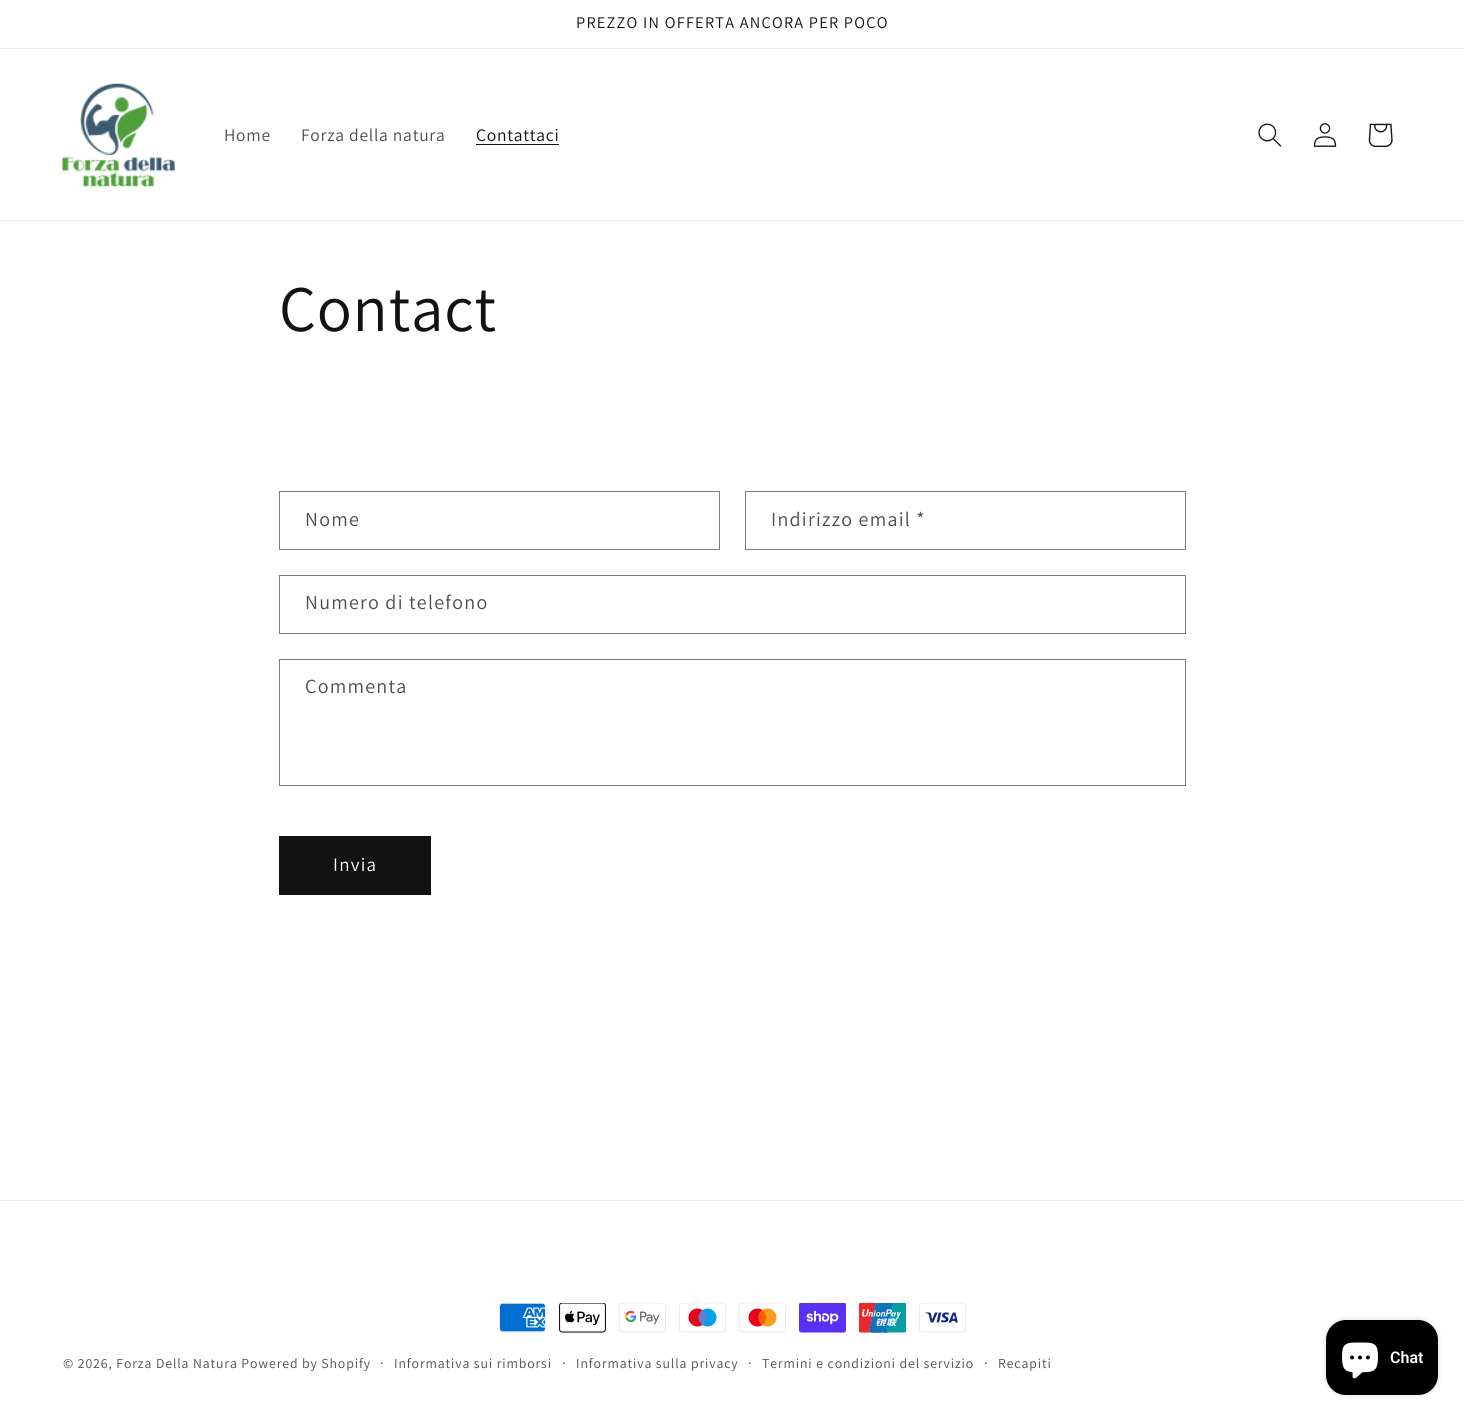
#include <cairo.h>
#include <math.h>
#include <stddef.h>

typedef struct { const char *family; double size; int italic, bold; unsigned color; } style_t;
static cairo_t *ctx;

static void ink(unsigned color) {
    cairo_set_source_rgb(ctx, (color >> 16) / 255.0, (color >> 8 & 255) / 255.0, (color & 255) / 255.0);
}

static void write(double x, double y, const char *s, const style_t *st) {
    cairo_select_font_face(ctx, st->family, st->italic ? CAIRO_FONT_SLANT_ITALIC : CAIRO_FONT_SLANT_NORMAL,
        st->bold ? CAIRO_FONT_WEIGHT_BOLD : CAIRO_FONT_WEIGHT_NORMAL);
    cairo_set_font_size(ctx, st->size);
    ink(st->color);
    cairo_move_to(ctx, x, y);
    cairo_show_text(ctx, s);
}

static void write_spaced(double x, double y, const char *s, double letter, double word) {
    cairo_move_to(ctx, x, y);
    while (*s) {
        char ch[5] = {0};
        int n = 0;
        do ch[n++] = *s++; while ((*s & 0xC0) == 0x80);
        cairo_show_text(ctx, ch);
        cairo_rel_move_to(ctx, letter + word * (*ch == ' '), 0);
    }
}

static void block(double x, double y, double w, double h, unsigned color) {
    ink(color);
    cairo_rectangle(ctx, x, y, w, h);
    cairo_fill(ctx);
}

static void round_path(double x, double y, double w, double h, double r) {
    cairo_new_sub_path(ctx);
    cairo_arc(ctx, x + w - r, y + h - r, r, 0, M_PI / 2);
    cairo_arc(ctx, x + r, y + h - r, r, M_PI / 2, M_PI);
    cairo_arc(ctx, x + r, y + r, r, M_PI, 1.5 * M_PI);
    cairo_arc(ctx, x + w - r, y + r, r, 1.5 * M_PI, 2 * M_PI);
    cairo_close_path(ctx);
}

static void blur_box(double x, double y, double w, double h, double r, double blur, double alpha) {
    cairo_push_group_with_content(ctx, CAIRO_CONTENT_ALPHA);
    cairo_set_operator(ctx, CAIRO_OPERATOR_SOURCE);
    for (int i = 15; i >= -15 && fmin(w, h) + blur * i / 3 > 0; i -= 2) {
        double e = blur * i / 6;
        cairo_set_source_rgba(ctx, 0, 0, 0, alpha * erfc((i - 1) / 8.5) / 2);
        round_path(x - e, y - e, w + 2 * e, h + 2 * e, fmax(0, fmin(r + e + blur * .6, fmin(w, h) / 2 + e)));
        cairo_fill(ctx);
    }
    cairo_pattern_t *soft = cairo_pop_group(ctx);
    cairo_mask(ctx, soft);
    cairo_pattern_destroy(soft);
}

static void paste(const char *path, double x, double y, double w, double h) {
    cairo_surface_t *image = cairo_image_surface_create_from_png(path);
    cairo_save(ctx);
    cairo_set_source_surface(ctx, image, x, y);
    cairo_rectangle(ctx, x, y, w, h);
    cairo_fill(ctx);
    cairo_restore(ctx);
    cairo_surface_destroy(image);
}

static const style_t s1 = {"Roboto SemiBold", 16, 0, 0, 0xffffff};

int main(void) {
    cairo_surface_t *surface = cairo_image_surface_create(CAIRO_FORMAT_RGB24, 1464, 1421);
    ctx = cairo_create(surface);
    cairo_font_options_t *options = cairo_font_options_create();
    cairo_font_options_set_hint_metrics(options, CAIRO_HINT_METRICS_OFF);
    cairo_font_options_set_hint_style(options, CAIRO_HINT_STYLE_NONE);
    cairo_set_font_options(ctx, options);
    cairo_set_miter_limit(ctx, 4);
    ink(0xffffff);
    cairo_paint(ctx);
    block(0, 48, 1464, 1, 0xececec);
    cairo_select_font_face(ctx, "Assistant", CAIRO_FONT_SLANT_NORMAL, CAIRO_FONT_WEIGHT_NORMAL);
    cairo_set_font_size(ctx, 16.25);
    ink(0x121212);
    write_spaced(576, 28, "PREZZO IN OFFERTA ANCORA PER POCO", 1.25, 0);
    block(0, 220, 1464, 1, 0xececec);
    paste("pic1.png", 62, 83, 113, 104);
    cairo_set_font_size(ctx, 17.5);
    ink(0x4d4d4d);
    write_spaced(224, 141, "Home", 0.75, 0);
    write_spaced(301, 141, "Forza della natura", 0.75, 0);
    ink(0x121212);
    write_spaced(476, 141, "Contattaci", 0.75, 0);
    block(476, 144, 83, 1, 0x121212);
    paste("pic2.png", 1258, 123, 24, 24);
    paste("pic3.png", 1313, 123, 24, 24);
    paste("pic4.png", 1368, 123, 25, 24);
    cairo_set_font_size(ctx, 65);
    write_spaced(279, 331, "Contact", 0.75, 0);
    cairo_rectangle(ctx, 279.5, 491.5, 440, 58);
    ink(0x7d7d7d);
    cairo_set_line_width(ctx, 1);
    cairo_stroke(ctx);
    cairo_set_font_size(ctx, 20);
    ink(0x4d4d4d);
    write_spaced(305, 526, "Nome", 1.25, 0);
    cairo_rectangle(ctx, 745.5, 491.5, 440, 58);
    ink(0x7d7d7d);
    cairo_stroke(ctx);
    ink(0x4d4d4d);
    write_spaced(771, 526, "Indirizzo email *", 1.25, 0);
    cairo_rectangle(ctx, 279.5, 575.5, 906, 58);
    ink(0x7d7d7d);
    cairo_stroke(ctx);
    ink(0x4d4d4d);
    write_spaced(305, 609, "Numero di telefono", 1.25, 0);
    cairo_rectangle(ctx, 279.5, 659.5, 906, 126);
    ink(0x7d7d7d);
    cairo_stroke(ctx);
    ink(0x4d4d4d);
    write_spaced(305, 693, "Commenta", 1.25, 0);
    block(279, 836, 152, 59, 0x121212);
    cairo_set_font_size(ctx, 19);
    ink(0xffffff);
    write_spaced(333, 871, "Invia", 1.25, 0);
    block(0, 1200, 1464, 1, 0xececec);
    paste("pic5.png", 499, 1303, 47, 30);
    paste("pic6.png", 559, 1303, 47, 30);
    paste("pic7.png", 619, 1303, 47, 30);
    paste("pic8.png", 679, 1303, 47, 30);
    paste("pic9.png", 739, 1303, 47, 30);
    paste("pic10.png", 799, 1303, 47, 30);
    paste("pic11.png", 859, 1303, 47, 30);
    paste("pic12.png", 919, 1303, 47, 30);
    cairo_set_font_size(ctx, 13.75);
    ink(0x4d4d4d);
    write_spaced(63, 1368, "© 2026, Forza Della Natura Powered by Shopify", 0.9, 0);
    cairo_set_font_size(ctx, 15);
    write_spaced(380, 1368, "·", 0.9, 0);
    cairo_set_font_size(ctx, 13.75);
    write_spaced(394, 1368, "Informativa sui rimborsi", 0.9, 0);
    cairo_set_font_size(ctx, 15);
    write_spaced(562, 1368, "·", 0.9, 0);
    cairo_set_font_size(ctx, 13.75);
    write_spaced(576, 1368, "Informativa sulla privacy", 0.9, 0);
    cairo_set_font_size(ctx, 15);
    write_spaced(748, 1368, "·", 0.9, 0);
    cairo_set_font_size(ctx, 13.75);
    write_spaced(762, 1368, "Termini e condizioni del servizio", 0.9, 0);
    cairo_set_font_size(ctx, 15);
    write_spaced(984, 1368, "·", 0.9, 0);
    cairo_set_font_size(ctx, 13.75);
    write_spaced(998, 1368, "Recapiti", 0.9, 0);
    ink(0x000000);
    blur_box(1326, 1320, 112, 75, 20, 3, 0.15);
    ink(0x000000);
    round_path(1326, 1320, 112, 75, 20);
    cairo_fill(ctx);
    paste("pic13.png", 1342, 1342, 36, 37);
    write(1390, 1363, "Chat", &s1);
    cairo_surface_write_to_png(surface, "screenshot.png");
    cairo_font_options_destroy(options);
    cairo_destroy(ctx);
    cairo_surface_destroy(surface);
    return 0;
}
